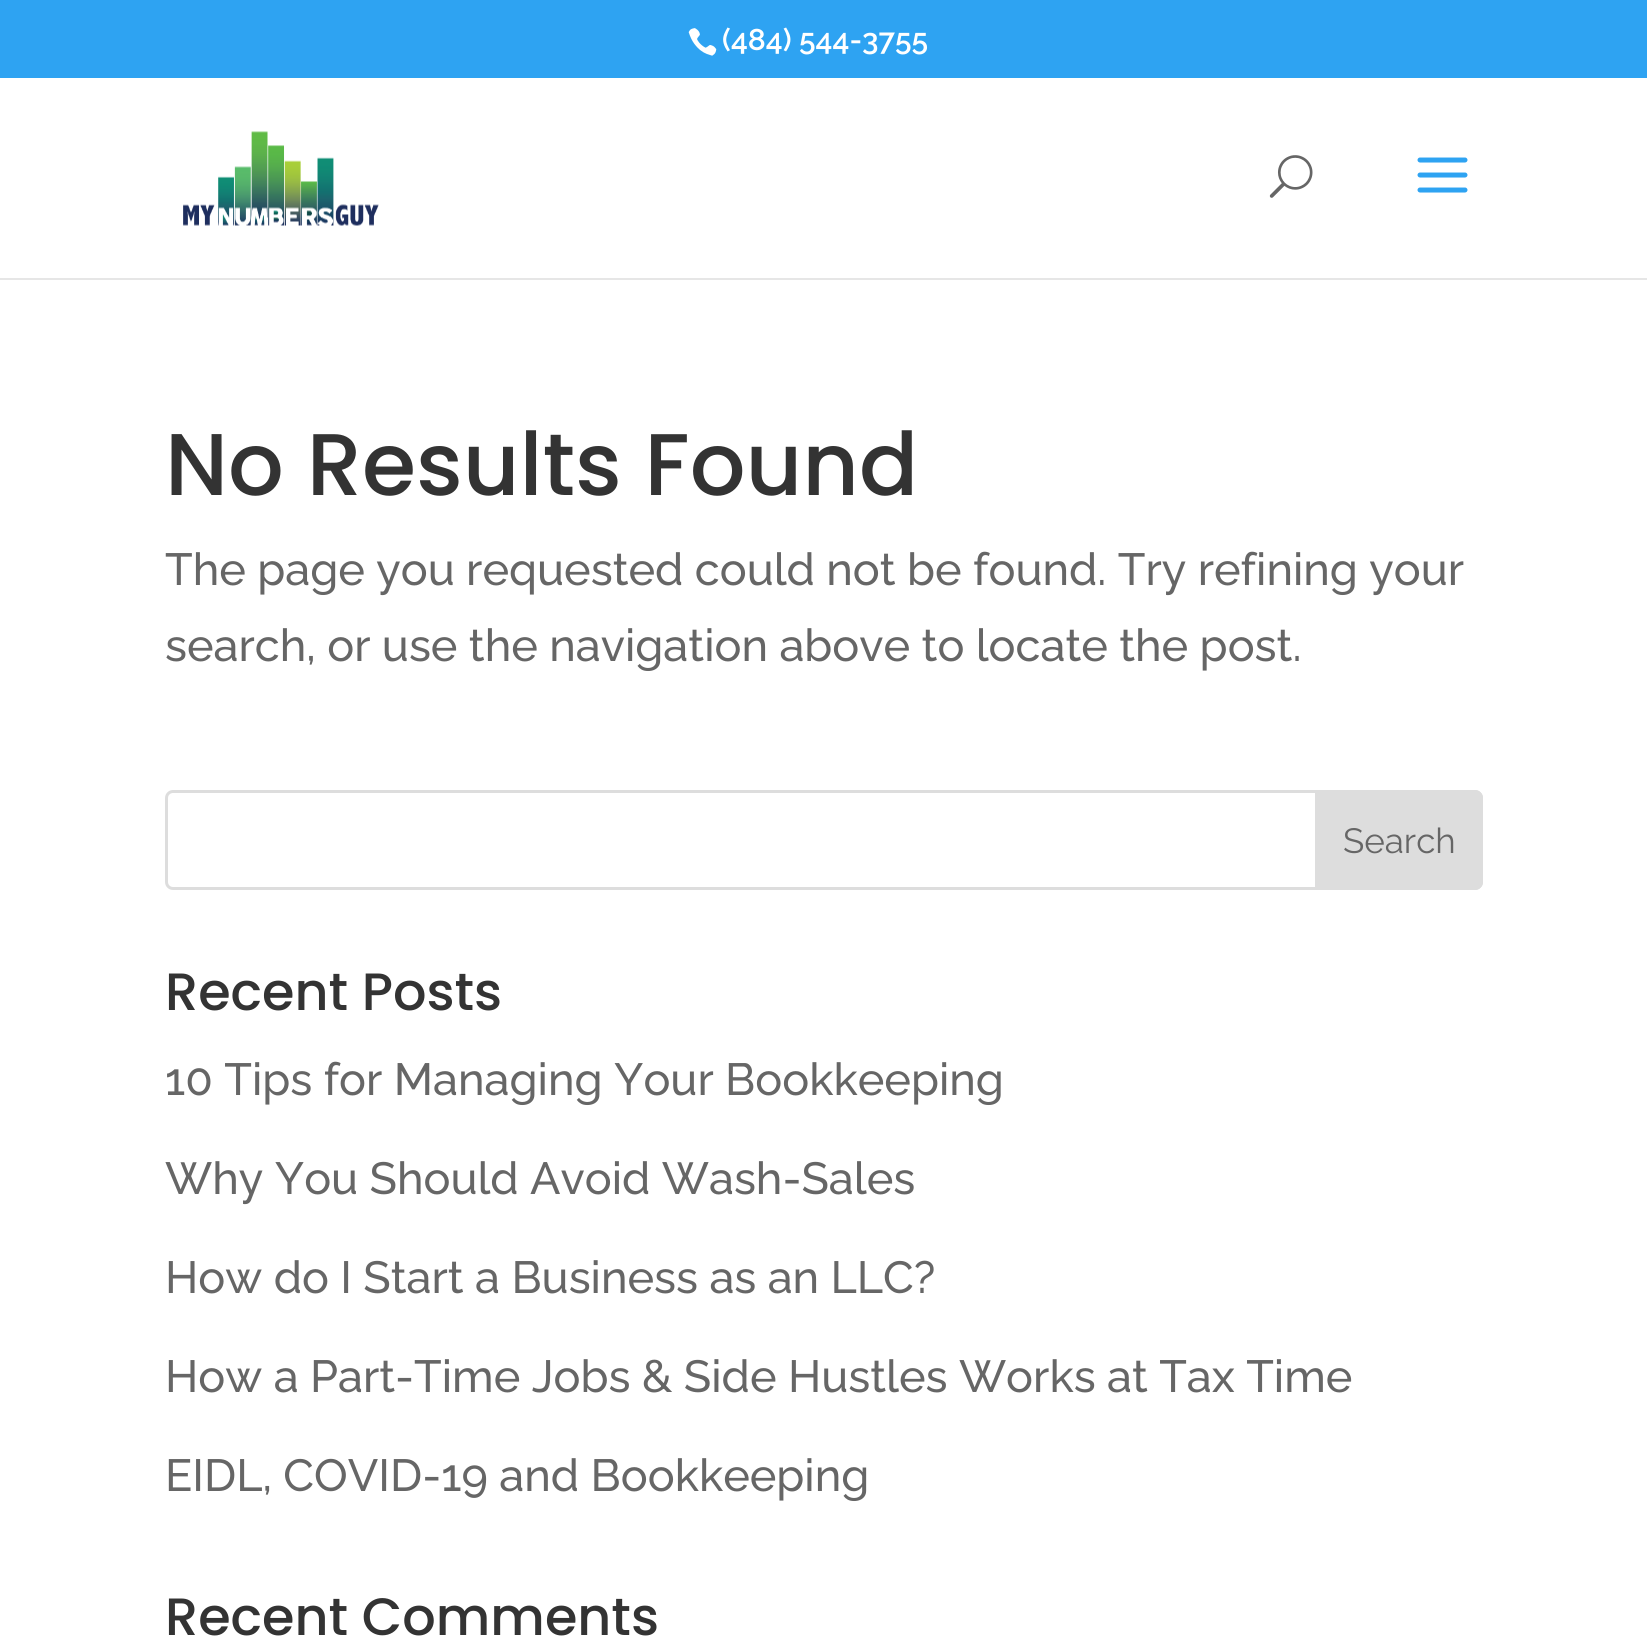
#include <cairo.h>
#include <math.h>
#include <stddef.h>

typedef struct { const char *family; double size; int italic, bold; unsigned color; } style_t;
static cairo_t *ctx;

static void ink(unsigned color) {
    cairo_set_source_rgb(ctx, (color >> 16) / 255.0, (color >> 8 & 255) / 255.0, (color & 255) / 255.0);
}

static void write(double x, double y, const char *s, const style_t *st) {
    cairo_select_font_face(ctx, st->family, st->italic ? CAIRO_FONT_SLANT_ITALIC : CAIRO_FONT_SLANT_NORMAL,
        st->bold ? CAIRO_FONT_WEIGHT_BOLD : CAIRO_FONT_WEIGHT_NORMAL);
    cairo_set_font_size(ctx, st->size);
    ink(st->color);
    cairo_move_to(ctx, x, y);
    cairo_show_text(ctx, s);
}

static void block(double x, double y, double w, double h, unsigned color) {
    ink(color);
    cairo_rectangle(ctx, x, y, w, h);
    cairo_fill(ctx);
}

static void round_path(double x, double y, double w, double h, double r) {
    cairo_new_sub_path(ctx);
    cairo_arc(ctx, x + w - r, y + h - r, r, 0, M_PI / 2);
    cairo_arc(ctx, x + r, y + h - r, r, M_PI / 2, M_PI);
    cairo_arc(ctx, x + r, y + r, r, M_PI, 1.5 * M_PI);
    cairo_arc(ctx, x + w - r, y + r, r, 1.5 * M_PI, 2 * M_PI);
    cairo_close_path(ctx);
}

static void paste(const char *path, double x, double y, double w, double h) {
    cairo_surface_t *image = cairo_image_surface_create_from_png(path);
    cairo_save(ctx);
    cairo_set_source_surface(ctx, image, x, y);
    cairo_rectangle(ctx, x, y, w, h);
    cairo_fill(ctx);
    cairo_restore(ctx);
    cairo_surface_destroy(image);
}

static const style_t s1 = {"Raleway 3 Thin", 30, 0, 0, 0xffffff};
static const style_t s2 = {"Poppins Medium", 87.5, 0, 0, 0x333333};
static const style_t s3 = {"Raleway Thin", 45, 0, 0, 0x666666};
static const style_t s4 = {"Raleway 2 Thin", 35, 0, 0, 0x666666};
static const style_t s5 = {"Poppins Medium", 52.5, 0, 0, 0x333333};

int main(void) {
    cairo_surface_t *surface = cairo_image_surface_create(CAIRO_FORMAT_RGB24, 1647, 1651);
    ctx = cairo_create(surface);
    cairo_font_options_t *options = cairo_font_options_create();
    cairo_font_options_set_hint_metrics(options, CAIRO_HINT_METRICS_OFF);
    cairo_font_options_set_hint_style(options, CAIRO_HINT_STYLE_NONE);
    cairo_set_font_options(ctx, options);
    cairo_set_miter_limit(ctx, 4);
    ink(0xffffff);
    cairo_paint(ctx);
    block(0, 0, 1647, 78, 0x2ea3f2);
    paste("pic1.png", 688, 28, 29, 28);
    write(722, 50, "(484) 544-3755", &s1);
    ink(0xe6e6e6);
    cairo_new_path(ctx);
    cairo_move_to(ctx, 0, 278);
    cairo_line_to(ctx, 0, 280);
    cairo_line_to(ctx, 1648, 280);
    cairo_line_to(ctx, 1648, 80);
    cairo_line_to(ctx, 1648, 278);
    cairo_close_path(ctx);
    cairo_fill(ctx);
    paste("pic2.png", 183, 131, 196, 95);
    paste("pic3.png", 1269, 155, 44, 43);
    paste("pic4.png", 1417, 157, 51, 36);
    write(165, 495, "No Results Found", &s2);
    write(165, 585, "The page you requested could not be found. Try refining your", &s3);
    write(165, 661, "search, or use the navigation above to locate the post.", &s3);
    round_path(166.5, 791.5, 1315, 97, 6.5);
    ink(0xdddddd);
    cairo_set_line_width(ctx, 3);
    cairo_stroke(ctx);
    cairo_new_path(ctx);
    cairo_move_to(ctx, 1316.5, 791.5);
    cairo_line_to(ctx, 1475, 791.5);
    cairo_curve_to(ctx, 1478.5, 791.5, 1481.5, 794.5, 1481.5, 798);
    cairo_line_to(ctx, 1481.5, 882);
    cairo_curve_to(ctx, 1481.5, 885.5, 1478.5, 888.5, 1475, 888.5);
    cairo_line_to(ctx, 1316.5, 888.5);
    cairo_close_path(ctx);
    cairo_fill_preserve(ctx);
    cairo_stroke(ctx);
    write(1343, 853, "Search", &s4);
    write(165, 1010, "Recent Posts", &s5);
    write(165, 1095, "10 Tips for Managing Your Bookkeeping", &s3);
    write(165, 1194, "Why You Should Avoid Wash-Sales", &s3);
    write(165, 1293, "How do I Start a Business as an LLC?", &s3);
    write(165, 1392, "How a Part-Time Jobs & Side Hustles Works at Tax Time", &s3);
    write(165, 1491, "EIDL, COVID-19 and Bookkeeping", &s3);
    write(165, 1635, "Recent Comments", &s5);
    cairo_surface_write_to_png(surface, "screenshot.png");
    cairo_font_options_destroy(options);
    cairo_destroy(ctx);
    cairo_surface_destroy(surface);
    return 0;
}
